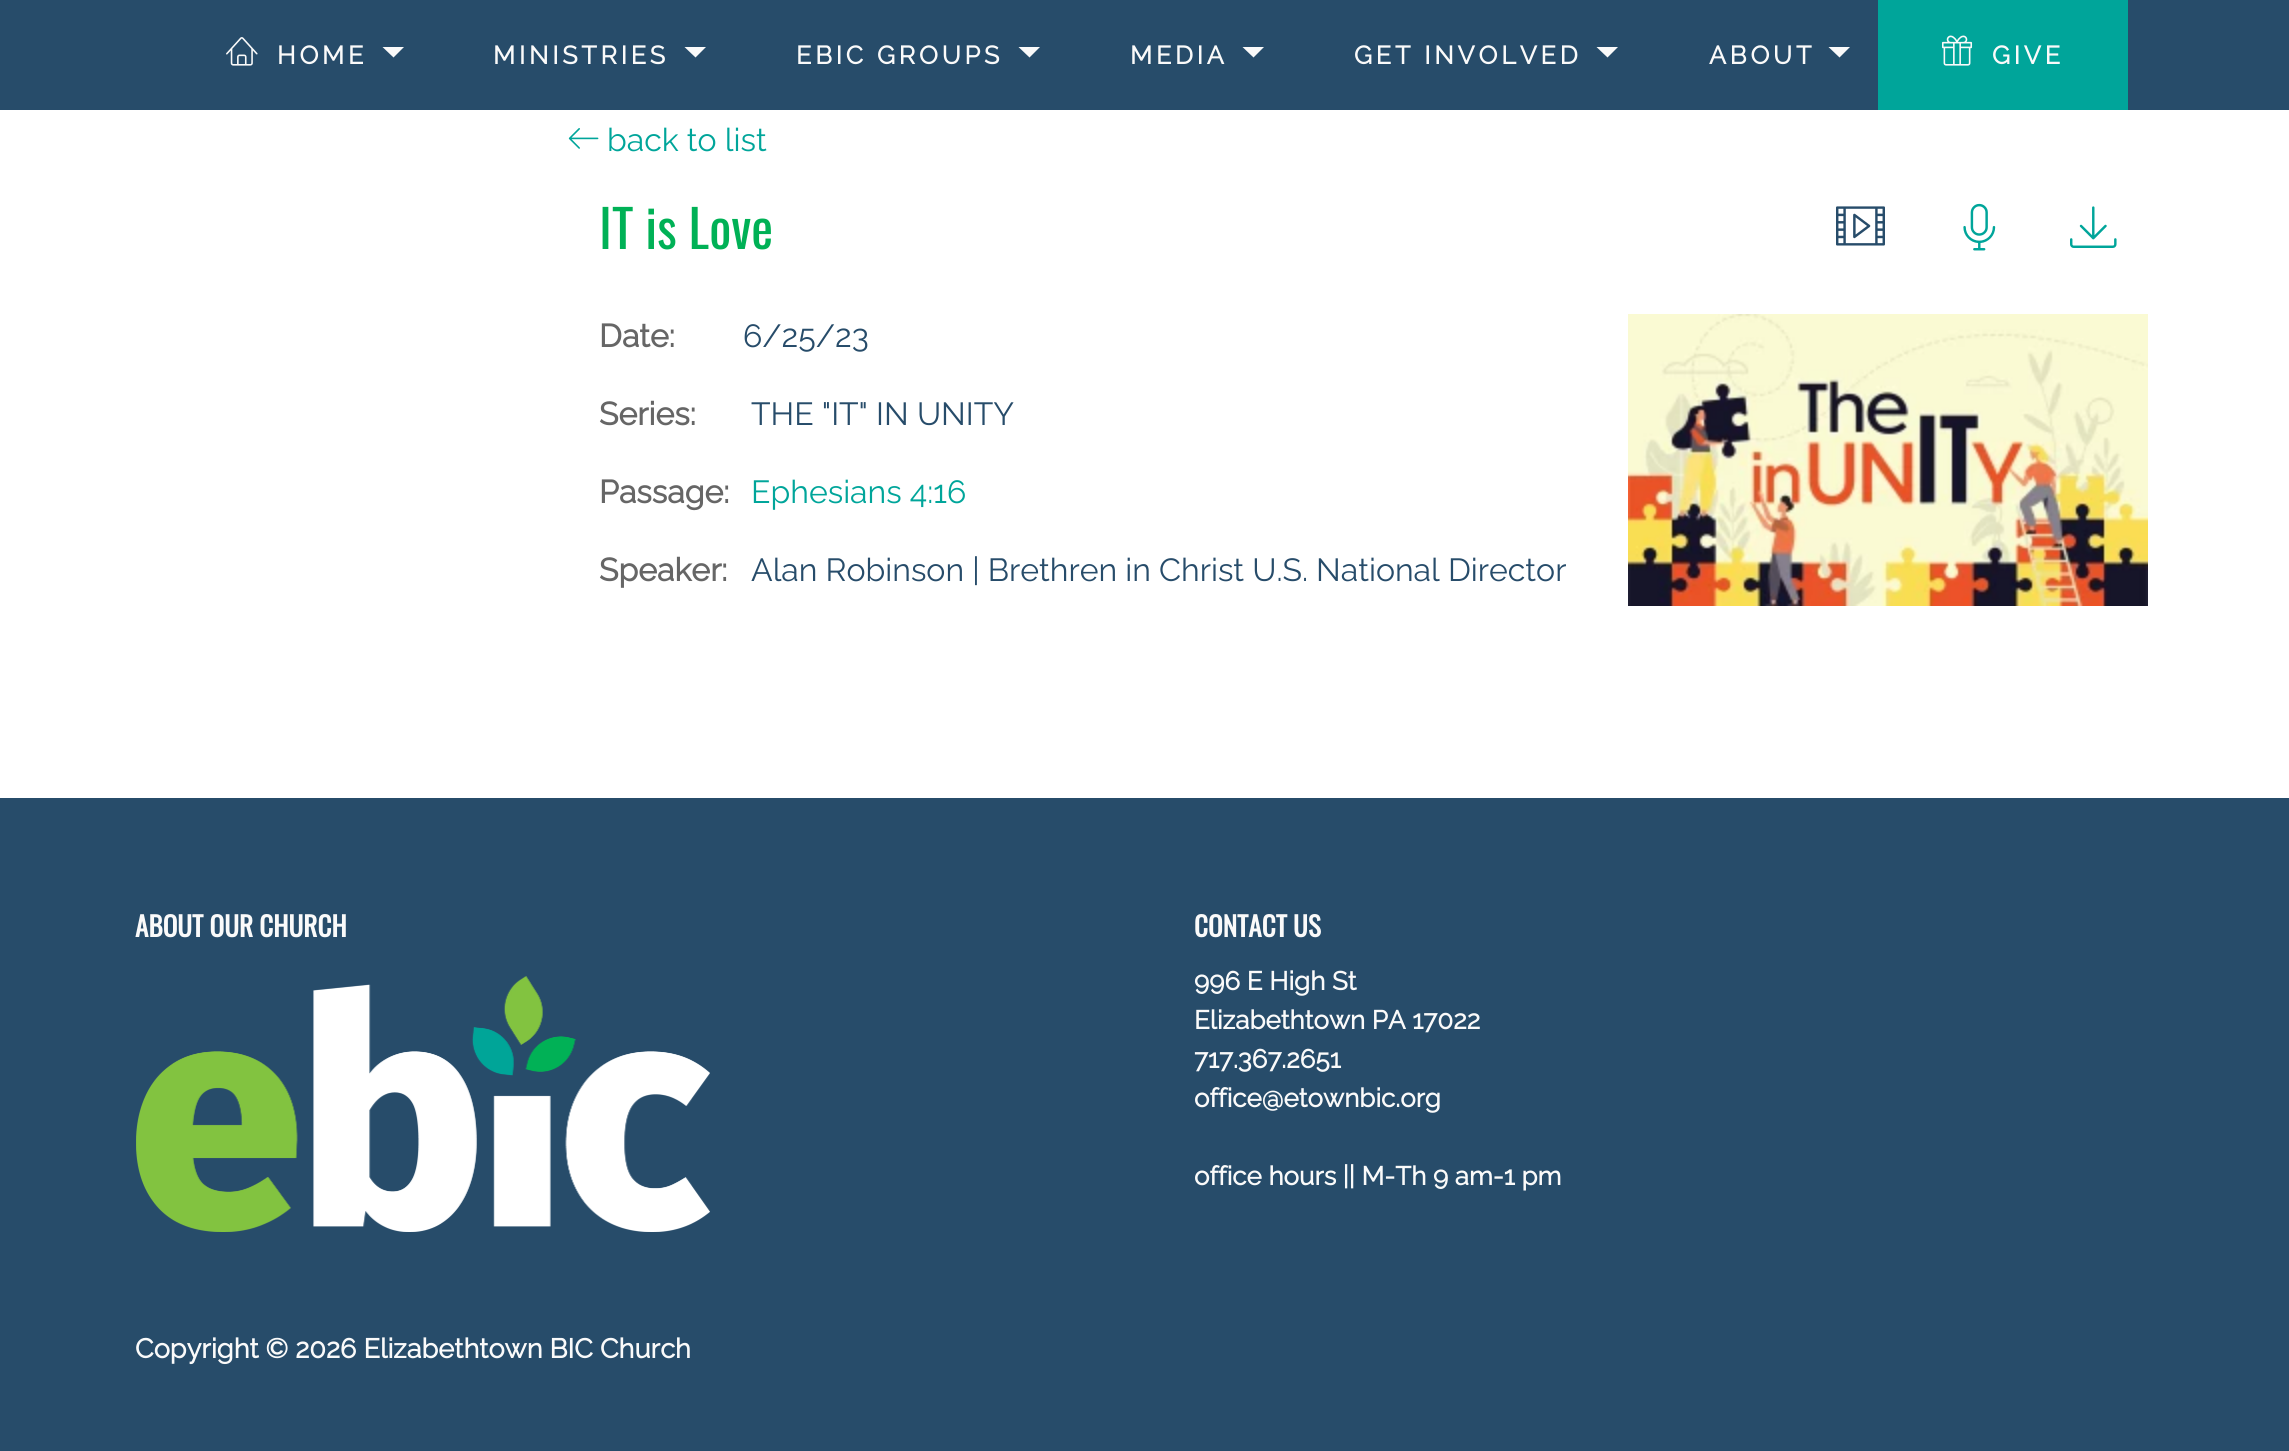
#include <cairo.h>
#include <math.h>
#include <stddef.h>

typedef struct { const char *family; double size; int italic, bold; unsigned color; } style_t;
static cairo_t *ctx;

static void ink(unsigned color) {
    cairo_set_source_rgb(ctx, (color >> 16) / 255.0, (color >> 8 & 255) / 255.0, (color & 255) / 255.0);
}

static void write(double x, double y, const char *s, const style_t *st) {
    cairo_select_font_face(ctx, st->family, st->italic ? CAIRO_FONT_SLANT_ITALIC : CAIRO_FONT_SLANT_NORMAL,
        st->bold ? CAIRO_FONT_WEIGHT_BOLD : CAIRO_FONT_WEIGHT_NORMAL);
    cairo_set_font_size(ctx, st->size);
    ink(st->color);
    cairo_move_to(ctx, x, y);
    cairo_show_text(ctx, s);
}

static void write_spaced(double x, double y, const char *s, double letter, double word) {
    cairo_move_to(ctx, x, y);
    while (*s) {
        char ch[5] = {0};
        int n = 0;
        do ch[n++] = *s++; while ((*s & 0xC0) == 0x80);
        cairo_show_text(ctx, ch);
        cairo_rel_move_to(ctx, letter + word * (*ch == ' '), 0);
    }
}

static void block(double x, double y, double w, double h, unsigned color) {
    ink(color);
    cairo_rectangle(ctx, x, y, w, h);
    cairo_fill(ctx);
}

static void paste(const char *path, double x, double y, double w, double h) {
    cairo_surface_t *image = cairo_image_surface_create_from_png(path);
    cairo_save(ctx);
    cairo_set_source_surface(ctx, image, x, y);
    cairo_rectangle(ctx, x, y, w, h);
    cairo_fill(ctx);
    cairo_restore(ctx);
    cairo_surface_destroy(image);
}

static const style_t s1 = {"Raleway Thin", 32, 0, 0, 0x00a59a};
static const style_t s2 = {"Oswald", 52, 0, 0, 0x00b156};
static const style_t s3 = {"Raleway", 32, 0, 1, 0x666666};
static const style_t s4 = {"Raleway Thin", 32, 0, 0, 0x274c6a};
static const style_t s5 = {"Oswald", 27.2, 0, 1, 0xfafafa};
static const style_t s6 = {"Raleway", 26, 0, 1, 0xfafafa};
static const style_t s7 = {"Raleway", 27.2, 0, 1, 0xfafafa};

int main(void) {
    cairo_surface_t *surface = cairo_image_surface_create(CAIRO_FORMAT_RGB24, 2289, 1451);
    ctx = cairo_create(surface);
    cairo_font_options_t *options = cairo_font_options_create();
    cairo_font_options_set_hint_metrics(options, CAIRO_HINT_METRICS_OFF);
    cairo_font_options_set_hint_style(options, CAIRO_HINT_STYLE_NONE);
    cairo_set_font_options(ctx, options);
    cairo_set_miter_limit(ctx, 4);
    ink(0x274c6a);
    cairo_paint(ctx);
    paste("pic1.png", 226, 37, 32, 29);
    cairo_select_font_face(ctx, "Raleway", CAIRO_FONT_SLANT_NORMAL, CAIRO_FONT_WEIGHT_BOLD);
    cairo_set_font_size(ctx, 25.25);
    ink(0xfafafa);
    write_spaced(277, 64, "HOME", 3.75, 0);
    cairo_new_path(ctx);
    cairo_move_to(ctx, 382.5, 47);
    cairo_line_to(ctx, 404, 47);
    cairo_line_to(ctx, 393.5, 57.5);
    cairo_close_path(ctx);
    cairo_fill(ctx);
    write_spaced(493, 64, "MINISTRIES", 3.75, 0);
    cairo_new_path(ctx);
    cairo_move_to(ctx, 684.5, 47);
    cairo_line_to(ctx, 706, 47);
    cairo_line_to(ctx, 695.5, 57.5);
    cairo_close_path(ctx);
    cairo_fill(ctx);
    write_spaced(796, 64, "EBIC GROUPS", 3.75, 0);
    cairo_new_path(ctx);
    cairo_move_to(ctx, 1018.5, 47);
    cairo_line_to(ctx, 1040, 47);
    cairo_line_to(ctx, 1029.5, 57.5);
    cairo_close_path(ctx);
    cairo_fill(ctx);
    write_spaced(1130, 64, "MEDIA", 3.75, 0);
    cairo_new_path(ctx);
    cairo_move_to(ctx, 1242.5, 47);
    cairo_line_to(ctx, 1264, 47);
    cairo_line_to(ctx, 1253.5, 57.5);
    cairo_close_path(ctx);
    cairo_fill(ctx);
    write_spaced(1354, 64, "GET INVOLVED", 3.75, 0);
    cairo_new_path(ctx);
    cairo_move_to(ctx, 1596.5, 47);
    cairo_line_to(ctx, 1618, 47);
    cairo_line_to(ctx, 1607.5, 57.5);
    cairo_close_path(ctx);
    cairo_fill(ctx);
    write_spaced(1709, 64, "ABOUT", 3.75, 0);
    cairo_new_path(ctx);
    cairo_move_to(ctx, 1828.5, 47);
    cairo_line_to(ctx, 1850, 47);
    cairo_line_to(ctx, 1839.5, 57.5);
    cairo_close_path(ctx);
    cairo_fill(ctx);
    block(1878, 0, 250, 110, 0x00a59a);
    paste("pic2.png", 1942, 35, 31, 31);
    ink(0xfafafa);
    write_spaced(1992, 64, "GIVE", 3.75, 0);
    block(0, 110, 2289, 688, 0xffffff);
    paste("pic3.png", 568, 128, 31, 21);
    write(607, 151, "back to list", &s1);
    write(599, 249, "IT is Love", &s2);
    paste("pic4.png", 1836, 206, 49, 40);
    paste("pic5.png", 1963, 203, 33, 48);
    paste("pic6.png", 2070, 206, 47, 42);
    write(599, 347, "Date:", &s3);
    write(743, 347, "6/25/23", &s4);
    paste("pic7.png", 1628, 314, 520, 292);
    write(599, 425, "Series:", &s3);
    write(751, 425, "THE \"IT\" IN UNITY", &s4);
    write(599, 503, "Passage:", &s3);
    write(751, 503, "Ephesians 4:16", &s1);
    write(599, 581, "Speaker:", &s3);
    write(751, 581, "Alan Robinson | Brethren in Christ U.S. National Director", &s4);
    write(135, 937, "ABOUT OUR CHURCH", &s5);
    paste("pic8.png", 136, 976, 574, 256);
    write(1194, 937, "CONTACT US", &s5);
    write(1194, 990, "996 E High St", &s6);
    write(1194, 1029, "Elizabethtown PA 17022", &s6);
    write(1194, 1068, "717.367.2651", &s6);
    write(1194, 1107, "office@etownbic.org", &s6);
    write(1194, 1185, "office hours || M-Th 9 am-1 pm", &s6);
    write(135, 1358, "Copyright © 2026 Elizabethtown BIC Church", &s7);
    cairo_surface_write_to_png(surface, "screenshot.png");
    cairo_font_options_destroy(options);
    cairo_destroy(ctx);
    cairo_surface_destroy(surface);
    return 0;
}
